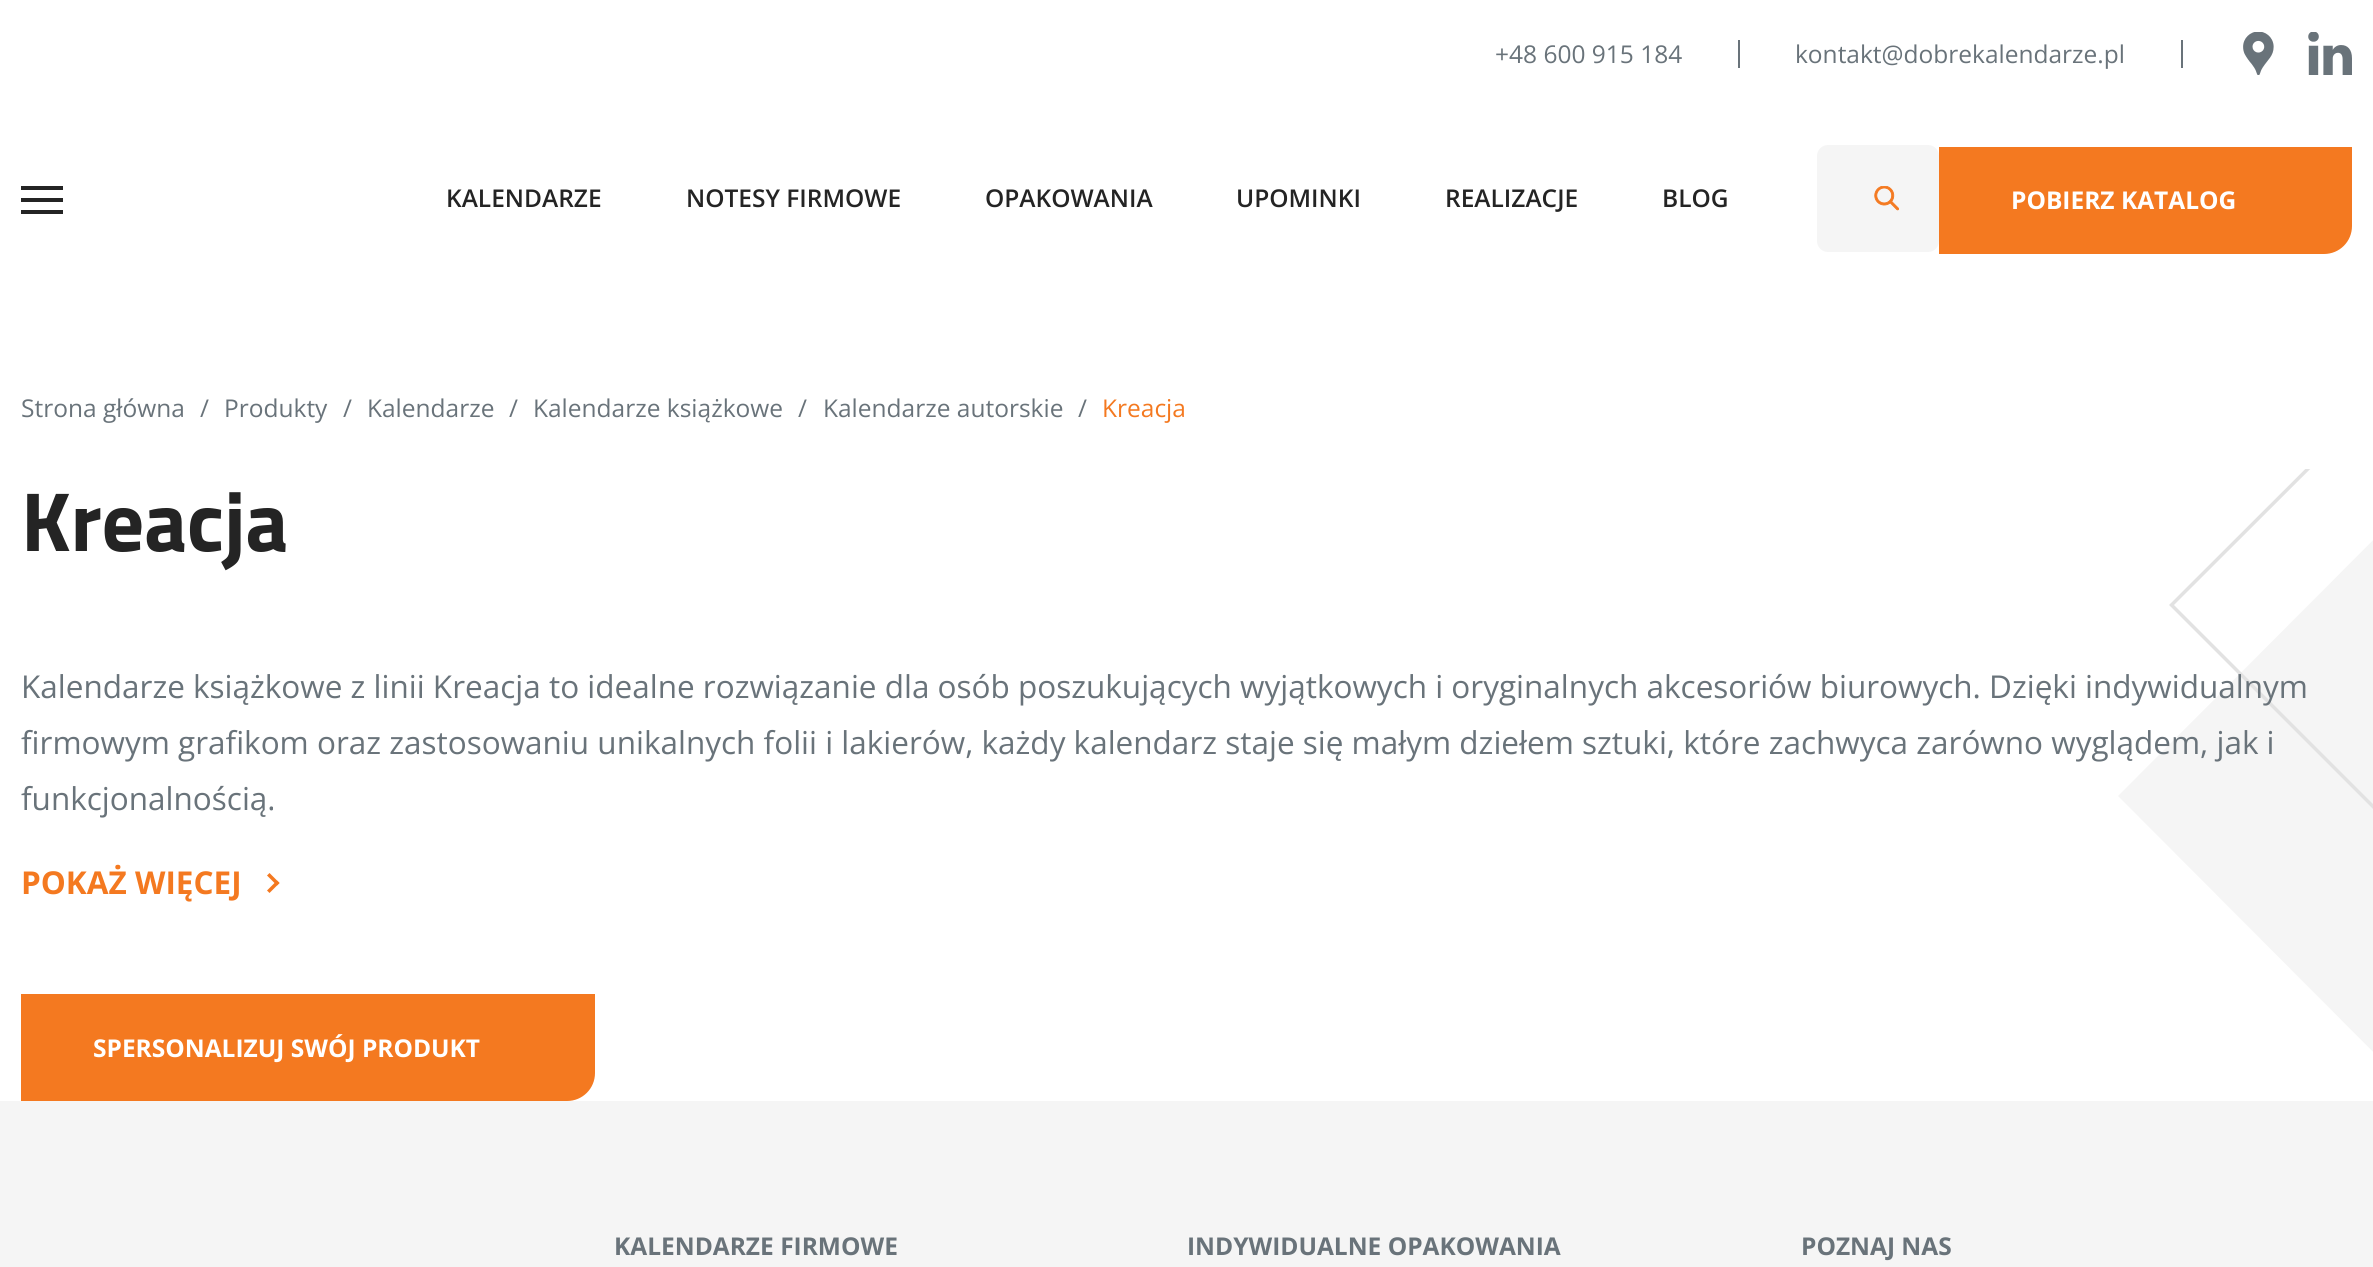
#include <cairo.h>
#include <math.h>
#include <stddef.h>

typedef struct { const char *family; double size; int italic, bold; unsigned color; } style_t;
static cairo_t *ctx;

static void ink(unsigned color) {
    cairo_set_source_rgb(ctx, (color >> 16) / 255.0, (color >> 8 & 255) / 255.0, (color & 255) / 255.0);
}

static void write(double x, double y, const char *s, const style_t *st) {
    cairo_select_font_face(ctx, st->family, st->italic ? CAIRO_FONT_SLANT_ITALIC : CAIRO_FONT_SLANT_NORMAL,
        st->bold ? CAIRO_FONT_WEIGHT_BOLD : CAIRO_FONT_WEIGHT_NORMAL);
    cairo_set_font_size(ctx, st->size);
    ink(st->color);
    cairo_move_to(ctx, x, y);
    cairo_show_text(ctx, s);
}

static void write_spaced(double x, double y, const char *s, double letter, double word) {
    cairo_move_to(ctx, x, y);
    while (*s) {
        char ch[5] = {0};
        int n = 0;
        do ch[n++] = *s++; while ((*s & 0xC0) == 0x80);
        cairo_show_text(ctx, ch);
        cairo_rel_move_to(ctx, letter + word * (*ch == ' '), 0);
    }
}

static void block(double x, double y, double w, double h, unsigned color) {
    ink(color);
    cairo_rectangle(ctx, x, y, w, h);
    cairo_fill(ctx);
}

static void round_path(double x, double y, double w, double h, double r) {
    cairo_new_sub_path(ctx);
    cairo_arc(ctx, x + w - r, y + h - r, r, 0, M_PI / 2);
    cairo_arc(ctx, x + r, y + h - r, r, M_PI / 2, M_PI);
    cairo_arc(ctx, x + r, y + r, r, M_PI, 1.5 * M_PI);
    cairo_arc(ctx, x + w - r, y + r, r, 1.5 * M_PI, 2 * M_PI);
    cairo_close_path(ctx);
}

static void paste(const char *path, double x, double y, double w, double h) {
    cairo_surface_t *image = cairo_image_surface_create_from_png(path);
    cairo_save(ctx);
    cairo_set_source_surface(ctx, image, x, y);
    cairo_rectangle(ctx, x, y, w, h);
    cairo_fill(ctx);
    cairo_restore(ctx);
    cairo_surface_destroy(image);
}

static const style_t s1 = {"Open Sans", 24.5, 0, 0, 0x69737a};
static const style_t s2 = {"Open Sans SemiBold", 24.5, 0, 0, 0x242424};
static const style_t s3 = {"Open Sans", 24.5, 0, 1, 0xffffff};
static const style_t s4 = {"Open Sans", 24.5, 0, 0, 0xf47920};
static const style_t s5 = {"Open Sans", 31.5, 0, 0, 0x69737a};
static const style_t s6 = {"Open Sans", 31.5, 0, 1, 0xf47920};
static const style_t s7 = {"Open Sans", 24.5, 0, 1, 0x69737a};

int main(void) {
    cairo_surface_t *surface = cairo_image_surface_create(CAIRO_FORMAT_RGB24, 2373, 1267);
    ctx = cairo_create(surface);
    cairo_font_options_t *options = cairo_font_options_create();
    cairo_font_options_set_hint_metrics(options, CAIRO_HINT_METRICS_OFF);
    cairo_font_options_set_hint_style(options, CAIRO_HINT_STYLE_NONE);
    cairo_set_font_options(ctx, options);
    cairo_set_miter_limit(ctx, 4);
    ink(0xffffff);
    cairo_paint(ctx);
    write(1495, 63, "+48 600 915 184", &s1);
    block(1738, 40, 2, 28, 0x69737a);
    write(1795, 63, "kontakt@dobrekalendarze.pl", &s1);
    block(2181, 40, 2, 28, 0x69737a);
    paste("pic1.png", 2243, 32, 31, 43);
    paste("pic2.png", 2308, 32, 44, 43);
    block(21, 198, 42, 4, 0x242424);
    block(21, 186, 42, 4, 0x242424);
    block(21, 210, 42, 4, 0x242424);
    write(446, 207, "KALENDARZE", &s2);
    write(686, 207, "NOTESY FIRMOWE", &s2);
    write(985, 207, "OPAKOWANIA", &s2);
    write(1236, 207, "UPOMINKI", &s2);
    write(1445, 207, "REALIZACJE", &s2);
    write(1662, 207, "BLOG", &s2);
    ink(0xf5f5f5);
    round_path(1817, 145, 122, 107, 11);
    cairo_fill(ctx);
    paste("pic3.png", 1874, 186, 25, 25);
    ink(0xf47920);
    cairo_new_path(ctx);
    cairo_move_to(ctx, 1940, 148);
    cairo_line_to(ctx, 2351, 148);
    cairo_line_to(ctx, 2351, 226);
    cairo_curve_to(ctx, 2351, 241, 2339, 253, 2324, 253);
    cairo_line_to(ctx, 1940, 253);
    cairo_close_path(ctx);
    cairo_fill_preserve(ctx);
    cairo_stroke(ctx);
    write(2011, 209, "POBIERZ KATALOG", &s3);
    write(21, 417, "Strona główna", &s1);
    write(200, 417, "/", &s1);
    write(224, 417, "Produkty", &s1);
    write(343, 417, "/", &s1);
    write(367, 417, "Kalendarze", &s1);
    write(509, 417, "/", &s1);
    write(533, 417, "Kalendarze książkowe", &s1);
    write(798, 417, "/", &s1);
    write(823, 417, "Kalendarze autorskie", &s1);
    write(1078, 417, "/", &s1);
    write(1102, 417, "Kreacja", &s4);
    ink(0xf5f5f5);
    cairo_new_path(ctx);
    cairo_move_to(ctx, 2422, 491);
    cairo_line_to(ctx, 2118, 796);
    cairo_line_to(ctx, 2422, 1101);
    cairo_fill(ctx);
    cairo_save(ctx);
    cairo_rectangle(ctx, 2118, 469, 255, 632);
    cairo_clip(ctx);
    cairo_new_path(ctx);
    cairo_move_to(ctx, 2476.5, 300.5);
    cairo_line_to(ctx, 2171.5, 605);
    cairo_line_to(ctx, 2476.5, 910);
    ink(0xe2e2e2);
    cairo_set_line_width(ctx, 3.5);
    cairo_stroke(ctx);
    cairo_restore(ctx);
    cairo_select_font_face(ctx, "Titillium Web", CAIRO_FONT_SLANT_NORMAL, CAIRO_FONT_WEIGHT_BOLD);
    cairo_set_font_size(ctx, 84);
    ink(0x242424);
    write_spaced(21, 551, "Kreacja", -0.25, 0);
    write(21, 698, "Kalendarze książkowe z linii Kreacja to idealne rozwiązanie dla osób poszukujących wyjątkowych i oryginalnych akcesoriów biurowych. Dzięki indywidualnym", &s5);
    write(21, 754, "firmowym grafikom oraz zastosowaniu unikalnych folii i lakierów, każdy kalendarz staje się małym dziełem sztuki, które zachwyca zarówno wyglądem, jak i", &s5);
    write(21, 810, "funkcjonalnością.", &s5);
    write(21, 894, "POKAŻ WIĘCEJ", &s6);
    cairo_new_path(ctx);
    cairo_move_to(ctx, 267, 875.5);
    cairo_line_to(ctx, 269.5, 873);
    cairo_line_to(ctx, 279.5, 883);
    cairo_line_to(ctx, 277, 885.5);
    cairo_close_path(ctx);
    cairo_fill(ctx);
    cairo_new_path(ctx);
    cairo_move_to(ctx, 267, 890.5);
    cairo_line_to(ctx, 277, 880.5);
    cairo_line_to(ctx, 279.5, 883);
    cairo_line_to(ctx, 269.5, 893);
    cairo_close_path(ctx);
    cairo_fill(ctx);
    cairo_new_path(ctx);
    cairo_move_to(ctx, 22, 995);
    cairo_line_to(ctx, 594, 995);
    cairo_line_to(ctx, 594, 1073);
    cairo_curve_to(ctx, 594, 1088, 582, 1100, 567, 1100);
    cairo_line_to(ctx, 22, 1100);
    cairo_close_path(ctx);
    cairo_fill_preserve(ctx);
    cairo_stroke(ctx);
    write(93, 1057, "SPERSONALIZUJ SWÓJ PRODUKT", &s3);
    block(0, 1101, 2373, 166, 0xf5f5f5);
    write(614, 1255, "KALENDARZE FIRMOWE", &s7);
    write(1187, 1255, "INDYWIDUALNE OPAKOWANIA", &s7);
    write(1801, 1255, "POZNAJ NAS", &s7);
    cairo_surface_write_to_png(surface, "screenshot.png");
    cairo_font_options_destroy(options);
    cairo_destroy(ctx);
    cairo_surface_destroy(surface);
    return 0;
}
